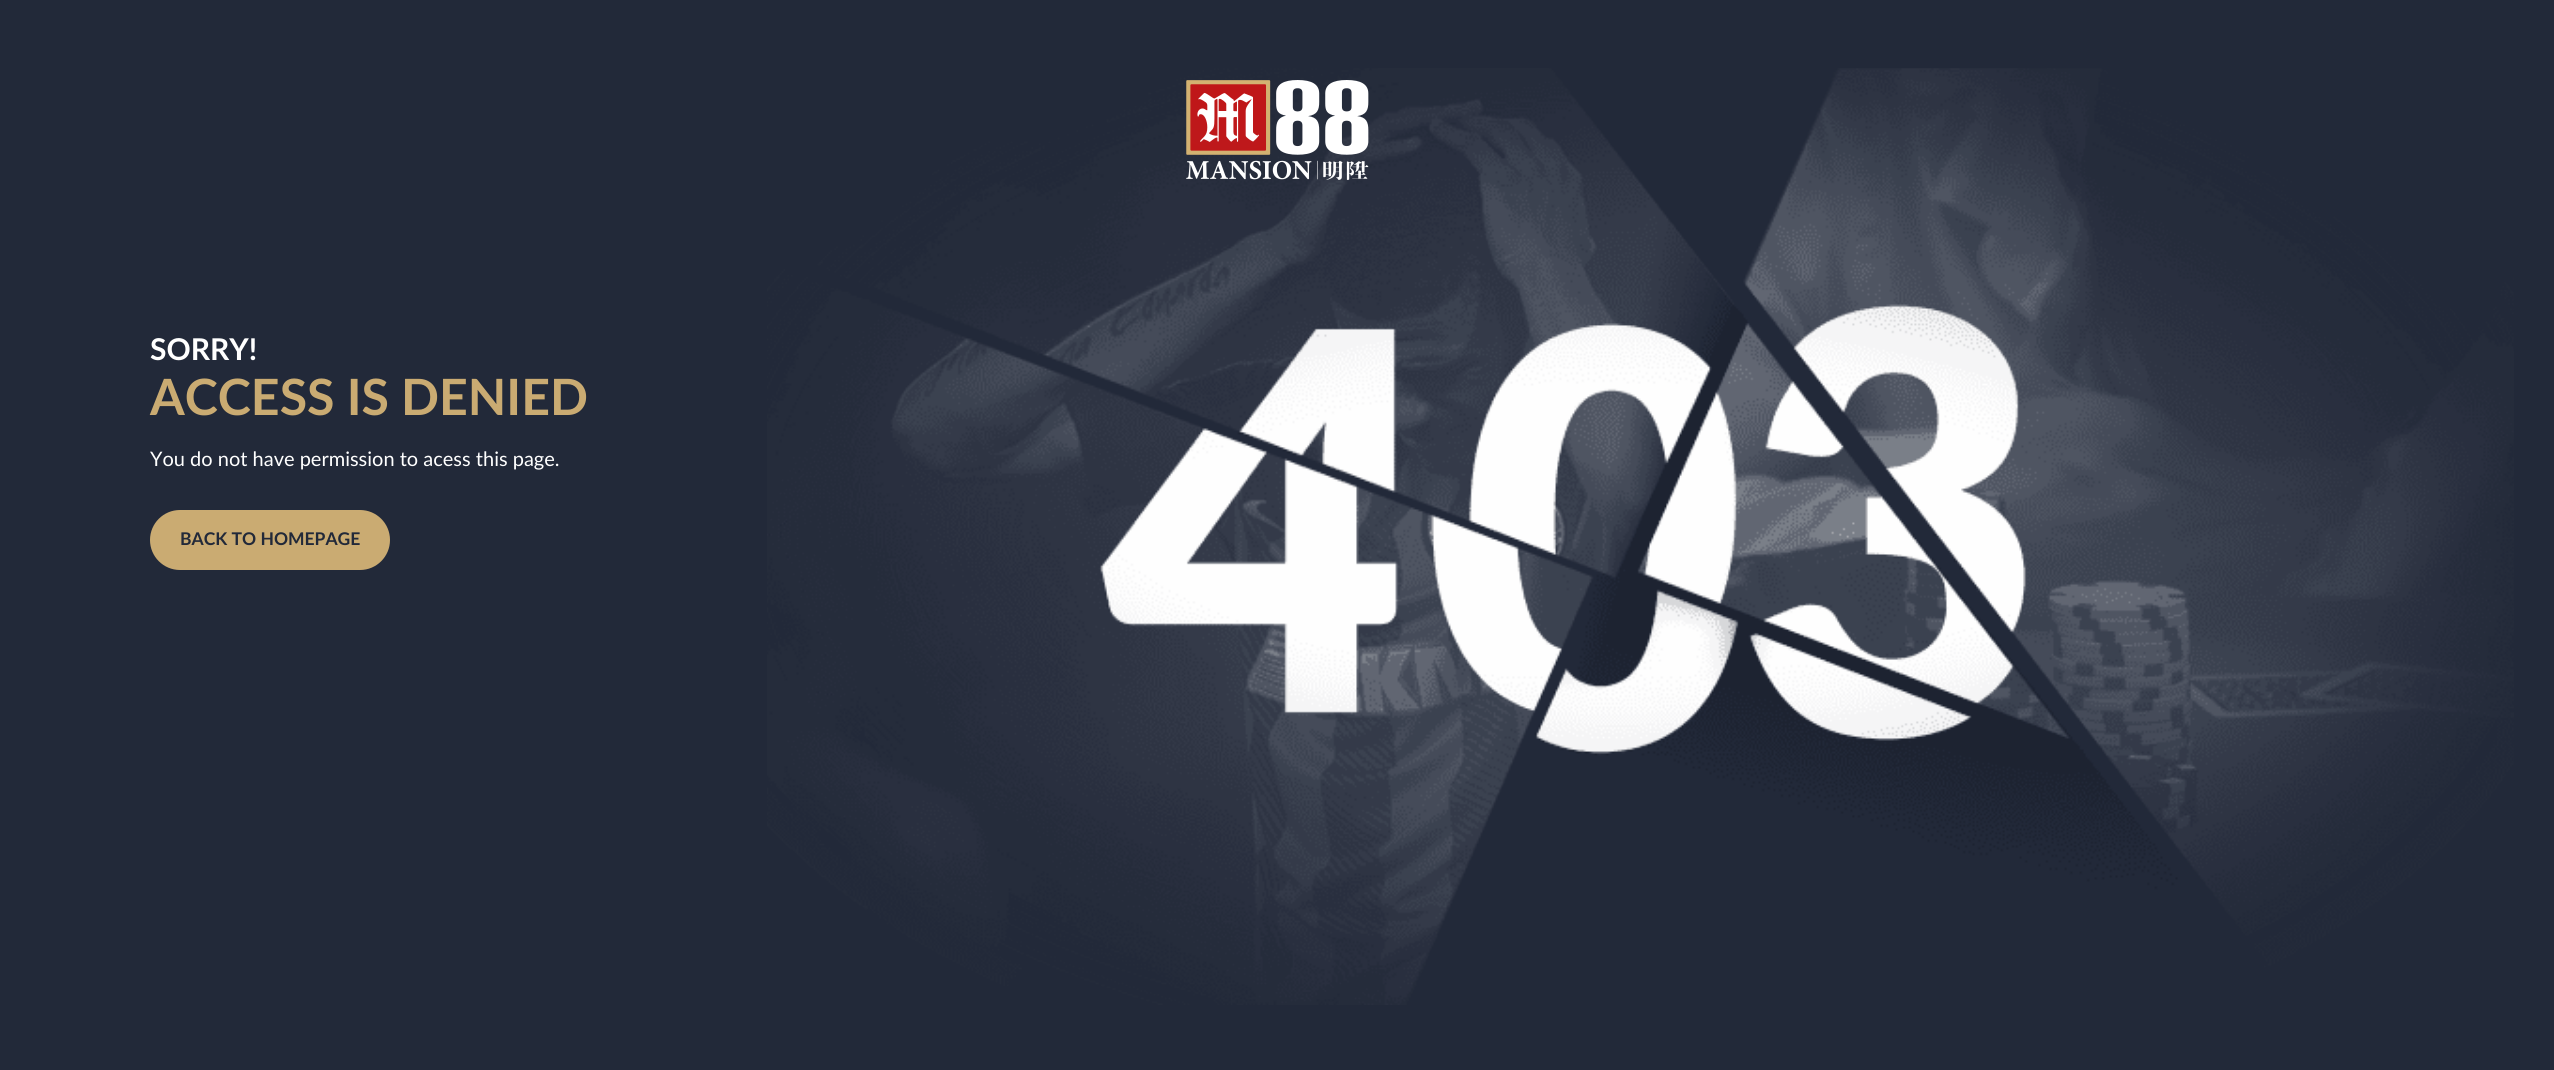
#include <cairo.h>
#include <math.h>
#include <stddef.h>

typedef struct { const char *family; double size; int italic, bold; unsigned color; } style_t;
static cairo_t *ctx;

static void ink(unsigned color) {
    cairo_set_source_rgb(ctx, (color >> 16) / 255.0, (color >> 8 & 255) / 255.0, (color & 255) / 255.0);
}

static void write(double x, double y, const char *s, const style_t *st) {
    cairo_select_font_face(ctx, st->family, st->italic ? CAIRO_FONT_SLANT_ITALIC : CAIRO_FONT_SLANT_NORMAL,
        st->bold ? CAIRO_FONT_WEIGHT_BOLD : CAIRO_FONT_WEIGHT_NORMAL);
    cairo_set_font_size(ctx, st->size);
    ink(st->color);
    cairo_move_to(ctx, x, y);
    cairo_show_text(ctx, s);
}

static void round_path(double x, double y, double w, double h, double r) {
    cairo_new_sub_path(ctx);
    cairo_arc(ctx, x + w - r, y + h - r, r, 0, M_PI / 2);
    cairo_arc(ctx, x + r, y + h - r, r, M_PI / 2, M_PI);
    cairo_arc(ctx, x + r, y + r, r, M_PI, 1.5 * M_PI);
    cairo_arc(ctx, x + w - r, y + r, r, 1.5 * M_PI, 2 * M_PI);
    cairo_close_path(ctx);
}

static void paste(const char *path, double x, double y, double w, double h) {
    cairo_surface_t *image = cairo_image_surface_create_from_png(path);
    cairo_save(ctx);
    cairo_set_source_surface(ctx, image, x, y);
    cairo_rectangle(ctx, x, y, w, h);
    cairo_fill(ctx);
    cairo_restore(ctx);
    cairo_surface_destroy(image);
}

static const style_t s1 = {"Lato", 30, 0, 1, 0xffffff};
static const style_t s2 = {"Lato", 50, 0, 1, 0xcaab72};
static const style_t s3 = {"Lato", 20, 0, 0, 0xffffff};
static const style_t s4 = {"Lato", 17.5, 0, 1, 0x222939};

int main(void) {
    cairo_surface_t *surface = cairo_image_surface_create(CAIRO_FORMAT_RGB24, 2554, 1070);
    ctx = cairo_create(surface);
    cairo_font_options_t *options = cairo_font_options_create();
    cairo_font_options_set_hint_metrics(options, CAIRO_HINT_METRICS_OFF);
    cairo_font_options_set_hint_style(options, CAIRO_HINT_STYLE_NONE);
    cairo_set_font_options(ctx, options);
    cairo_set_miter_limit(ctx, 4);
    ink(0x222939);
    cairo_paint(ctx);
    paste("pic1.png", 767, 68, 1747, 937);
    paste("pic2.png", 1186, 80, 183, 100);
    write(150, 360, "SORRY!", &s1);
    write(150, 415, "ACCESS IS DENIED", &s2);
    write(150, 466, "You do not have permission to acess this page.", &s3);
    ink(0xcaab72);
    round_path(150, 510, 240, 60, 30);
    cairo_fill(ctx);
    write(180, 545, "BACK TO HOMEPAGE", &s4);
    cairo_surface_write_to_png(surface, "screenshot.png");
    cairo_font_options_destroy(options);
    cairo_destroy(ctx);
    cairo_surface_destroy(surface);
    return 0;
}
